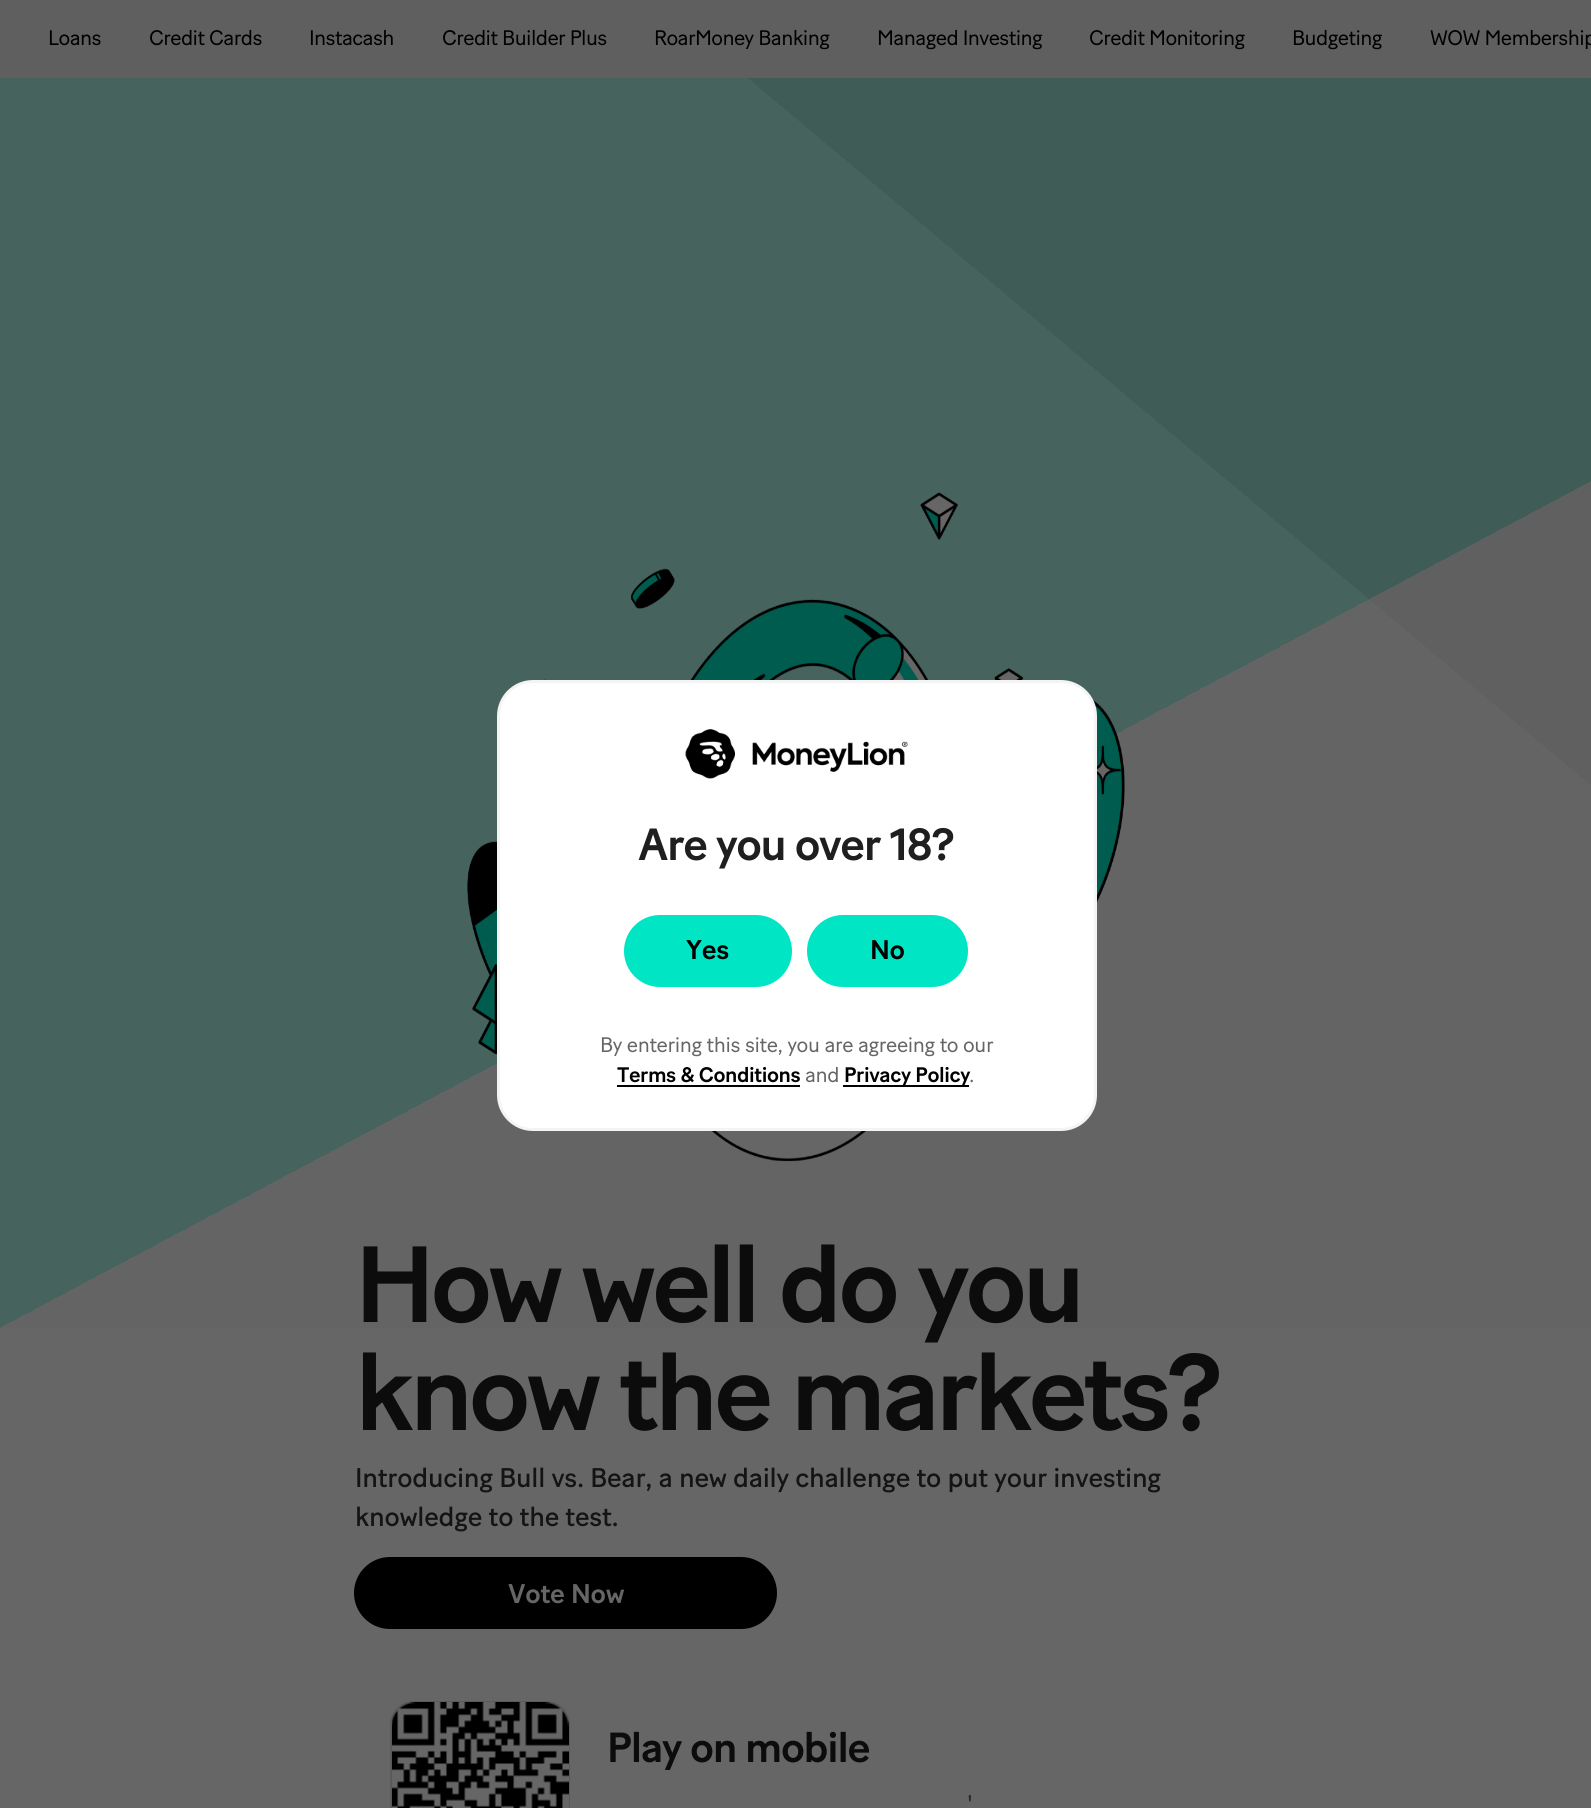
#include <cairo.h>
#include <math.h>
#include <stddef.h>

static cairo_t *ctx;

static void ink(unsigned color) {
    cairo_set_source_rgb(ctx, (color >> 16) / 255.0, (color >> 8 & 255) / 255.0, (color & 255) / 255.0);
}

static void write_spaced(double x, double y, const char *s, double letter, double word) {
    cairo_move_to(ctx, x, y);
    while (*s) {
        char ch[5] = {0};
        int n = 0;
        do ch[n++] = *s++; while ((*s & 0xC0) == 0x80);
        cairo_show_text(ctx, ch);
        cairo_rel_move_to(ctx, letter + word * (*ch == ' '), 0);
    }
}

static void block(double x, double y, double w, double h, unsigned color) {
    ink(color);
    cairo_rectangle(ctx, x, y, w, h);
    cairo_fill(ctx);
}

static void round_path(double x, double y, double w, double h, double r) {
    cairo_new_sub_path(ctx);
    cairo_arc(ctx, x + w - r, y + h - r, r, 0, M_PI / 2);
    cairo_arc(ctx, x + r, y + h - r, r, M_PI / 2, M_PI);
    cairo_arc(ctx, x + r, y + r, r, M_PI, 1.5 * M_PI);
    cairo_arc(ctx, x + w - r, y + r, r, 1.5 * M_PI, 2 * M_PI);
    cairo_close_path(ctx);
}

static void paste(const char *path, double x, double y, double w, double h) {
    cairo_surface_t *image = cairo_image_surface_create_from_png(path);
    cairo_save(ctx);
    cairo_set_source_surface(ctx, image, x, y);
    cairo_rectangle(ctx, x, y, w, h);
    cairo_fill(ctx);
    cairo_restore(ctx);
    cairo_surface_destroy(image);
}

int main(void) {
    cairo_surface_t *surface = cairo_image_surface_create(CAIRO_FORMAT_RGB24, 1591, 1808);
    ctx = cairo_create(surface);
    cairo_font_options_t *options = cairo_font_options_create();
    cairo_font_options_set_hint_metrics(options, CAIRO_HINT_METRICS_OFF);
    cairo_font_options_set_hint_style(options, CAIRO_HINT_STYLE_NONE);
    cairo_set_font_options(ctx, options);
    cairo_set_miter_limit(ctx, 4);
    cairo_pattern_t *gradient;
    ink(0xffffff);
    cairo_paint(ctx);
    gradient = cairo_pattern_create_linear(1570, -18, 22, 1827);
    cairo_pattern_add_color_stop_rgba(gradient, 0.25, 0.361, 0.361, 0.361, 1);
    cairo_pattern_add_color_stop_rgba(gradient, 0.25, 0.4, 0.4, 0.4, 1);
    cairo_set_source(ctx, gradient);
    cairo_pattern_destroy(gradient);
    cairo_rectangle(ctx, 0, 78, 1591, 1730);
    cairo_fill(ctx);
    gradient = cairo_pattern_create_linear(245, -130, 1346, 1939);
    cairo_pattern_add_color_stop_rgba(gradient, 0.5, 0, 0.361, 0.306, 0.3);
    cairo_pattern_add_color_stop_rgba(gradient, 0.5, 0.384, 0.384, 0.384, 0.6);
    cairo_set_source(ctx, gradient);
    cairo_pattern_destroy(gradient);
    cairo_rectangle(ctx, 0, 78, 1591, 1250);
    cairo_fill(ctx);
    block(0, 0, 1591, 78, 0x5f5f5f);
    cairo_select_font_face(ctx, "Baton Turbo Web", CAIRO_FONT_SLANT_NORMAL, CAIRO_FONT_WEIGHT_NORMAL);
    cairo_set_font_size(ctx, 21);
    ink(0x000000);
    write_spaced(48, 45, "Loans", -0.6, 0);
    write_spaced(149, 45, "Credit Cards", -0.6, 0);
    write_spaced(309, 45, "Instacash", -0.6, 0);
    write_spaced(442, 45, "Credit Builder Plus", -0.6, 0);
    write_spaced(654, 45, "RoarMoney Banking", -0.6, 0);
    write_spaced(877, 45, "Managed Investing", -0.6, 0);
    write_spaced(1089, 45, "Credit Monitoring", -0.6, 0);
    write_spaced(1292, 45, "Budgeting", -0.6, 0);
    write_spaced(1430, 45, "WOW Membership", -0.6, 0);
    paste("pic2.png", 467, 492, 658, 670);
    ink(0xffffff);
    round_path(498.5, 681.5, 597, 448, 34.5);
    cairo_fill_preserve(ctx);
    ink(0xf4f4f4);
    cairo_set_line_width(ctx, 3);
    cairo_stroke(ctx);
    paste("pic1.png", 685, 729, 223, 50);
    cairo_select_font_face(ctx, "Baton Turbo Web Medium", CAIRO_FONT_SLANT_NORMAL, CAIRO_FONT_WEIGHT_NORMAL);
    cairo_set_font_size(ctx, 45);
    ink(0x1f1f1f);
    write_spaced(638, 860, "Are you over 18?", -1.4, 0);
    ink(0x00e5c4);
    round_path(625.5, 916.5, 165, 69, 34.5);
    cairo_fill_preserve(ctx);
    cairo_stroke(ctx);
    cairo_set_font_size(ctx, 27);
    ink(0x000000);
    write_spaced(686, 959, "Yes", -0.27, 0);
    ink(0x00e5c4);
    round_path(808.5, 916.5, 158, 69, 34.5);
    cairo_fill_preserve(ctx);
    cairo_stroke(ctx);
    ink(0x000000);
    write_spaced(870, 959, "No", -0.27, 0);
    cairo_select_font_face(ctx, "Baton Turbo Web", CAIRO_FONT_SLANT_NORMAL, CAIRO_FONT_WEIGHT_NORMAL);
    cairo_set_font_size(ctx, 21);
    ink(0x666666);
    write_spaced(600, 1052, "By entering this site, you are agreeing to our", -0.4, 0);
    cairo_select_font_face(ctx, "Baton Turbo Web Medium", CAIRO_FONT_SLANT_NORMAL, CAIRO_FONT_WEIGHT_NORMAL);
    ink(0x000000);
    write_spaced(617, 1082, "Terms & Conditions", -0.4, 0);
    block(617, 1085, 183, 2, 0x000000);
    cairo_select_font_face(ctx, "Baton Turbo Web", CAIRO_FONT_SLANT_NORMAL, CAIRO_FONT_WEIGHT_NORMAL);
    ink(0x666666);
    write_spaced(805, 1082, "and", -0.4, 0);
    block(843, 1085, 126, 2, 0x000000);
    cairo_select_font_face(ctx, "Baton Turbo Web Medium", CAIRO_FONT_SLANT_NORMAL, CAIRO_FONT_WEIGHT_NORMAL);
    write_spaced(844, 1082, "Privacy Policy", -0.4, 0);
    cairo_select_font_face(ctx, "Baton Turbo Web", CAIRO_FONT_SLANT_NORMAL, CAIRO_FONT_WEIGHT_NORMAL);
    ink(0x666666);
    write_spaced(969, 1082, ".", -0.4, 0);
    cairo_select_font_face(ctx, "Baton Turbo Web Medium", CAIRO_FONT_SLANT_NORMAL, CAIRO_FONT_WEIGHT_NORMAL);
    cairo_set_font_size(ctx, 108);
    ink(0x0c0c0c);
    write_spaced(355, 1322, "How well do you", -4.3, 0);
    write_spaced(355, 1430, "know the markets?", -4.3, 0);
    cairo_select_font_face(ctx, "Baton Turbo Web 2", CAIRO_FONT_SLANT_NORMAL, CAIRO_FONT_WEIGHT_NORMAL);
    cairo_set_font_size(ctx, 27);
    ink(0x141414);
    write_spaced(355, 1487, "Introducing Bull vs. Bear, a new daily challenge to put your investing", -0.27, 0);
    write_spaced(355, 1526, "knowledge to the test.", -0.27, 0);
    ink(0x000000);
    round_path(355.5, 1558.5, 420, 69, 34.5);
    cairo_fill_preserve(ctx);
    cairo_stroke(ctx);
    cairo_select_font_face(ctx, "Baton Turbo Web Medium", CAIRO_FONT_SLANT_NORMAL, CAIRO_FONT_WEIGHT_NORMAL);
    ink(0x666666);
    write_spaced(508, 1603, "Vote Now", -0.27, 0);
    round_path(391, 1702, 178, 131, 23);
    ink(0x5a5a5a);
    cairo_set_line_width(ctx, 2);
    cairo_stroke(ctx);
    paste("pic3.png", 392, 1702, 177, 106);
    cairo_set_font_size(ctx, 42);
    ink(0x0c0c0c);
    write_spaced(607, 1762, "Play on mobile", -1.25, 0);
    cairo_select_font_face(ctx, "Baton Turbo Web", CAIRO_FONT_SLANT_NORMAL, CAIRO_FONT_WEIGHT_NORMAL);
    cairo_set_font_size(ctx, 27);
    ink(0x292929);
    write_spaced(967, 1814, "'", -1, 0);
    cairo_surface_write_to_png(surface, "screenshot.png");
    cairo_font_options_destroy(options);
    cairo_destroy(ctx);
    cairo_surface_destroy(surface);
    return 0;
}
